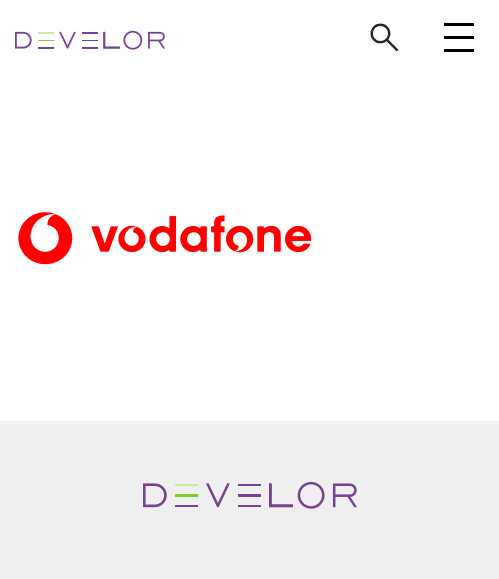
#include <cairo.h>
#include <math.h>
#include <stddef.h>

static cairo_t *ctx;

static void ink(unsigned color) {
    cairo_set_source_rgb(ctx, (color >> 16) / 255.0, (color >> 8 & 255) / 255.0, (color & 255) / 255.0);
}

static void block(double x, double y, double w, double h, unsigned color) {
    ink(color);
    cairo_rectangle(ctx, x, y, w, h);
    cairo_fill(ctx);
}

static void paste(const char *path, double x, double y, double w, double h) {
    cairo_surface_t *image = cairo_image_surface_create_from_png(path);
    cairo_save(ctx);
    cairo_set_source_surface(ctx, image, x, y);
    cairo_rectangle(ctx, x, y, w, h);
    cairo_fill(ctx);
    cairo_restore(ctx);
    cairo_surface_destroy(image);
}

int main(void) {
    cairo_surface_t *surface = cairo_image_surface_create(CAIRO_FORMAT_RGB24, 499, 579);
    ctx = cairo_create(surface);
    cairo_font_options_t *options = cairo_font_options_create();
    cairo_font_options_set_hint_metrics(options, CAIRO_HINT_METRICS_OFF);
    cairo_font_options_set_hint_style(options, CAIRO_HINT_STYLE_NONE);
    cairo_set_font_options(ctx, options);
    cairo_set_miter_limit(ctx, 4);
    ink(0xffffff);
    cairo_paint(ctx);
    paste("pic1.png", 15, 30, 150, 20);
    paste("pic2.png", 370, 23, 29, 29);
    block(444, 49, 30, 3, 0x000000);
    block(444, 23, 30, 3, 0x000000);
    block(444, 36, 30, 3, 0x000000);
    paste("pic3.png", 18, 212, 294, 54);
    block(0, 421, 499, 158, 0xefefef);
    paste("pic4.png", 143, 481, 214, 28);
    cairo_surface_write_to_png(surface, "screenshot.png");
    cairo_font_options_destroy(options);
    cairo_destroy(ctx);
    cairo_surface_destroy(surface);
    return 0;
}
